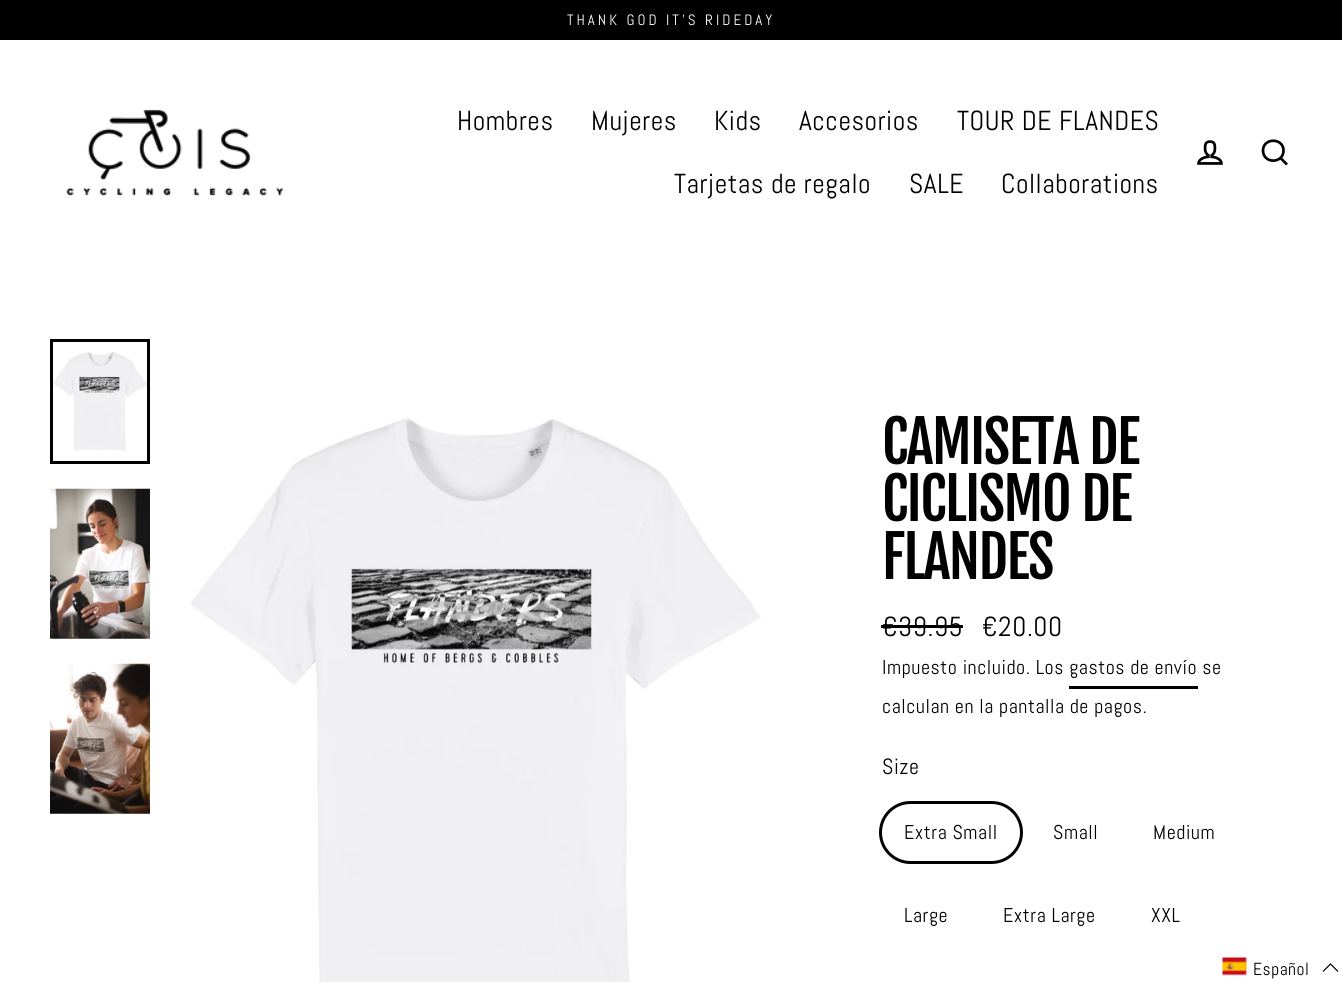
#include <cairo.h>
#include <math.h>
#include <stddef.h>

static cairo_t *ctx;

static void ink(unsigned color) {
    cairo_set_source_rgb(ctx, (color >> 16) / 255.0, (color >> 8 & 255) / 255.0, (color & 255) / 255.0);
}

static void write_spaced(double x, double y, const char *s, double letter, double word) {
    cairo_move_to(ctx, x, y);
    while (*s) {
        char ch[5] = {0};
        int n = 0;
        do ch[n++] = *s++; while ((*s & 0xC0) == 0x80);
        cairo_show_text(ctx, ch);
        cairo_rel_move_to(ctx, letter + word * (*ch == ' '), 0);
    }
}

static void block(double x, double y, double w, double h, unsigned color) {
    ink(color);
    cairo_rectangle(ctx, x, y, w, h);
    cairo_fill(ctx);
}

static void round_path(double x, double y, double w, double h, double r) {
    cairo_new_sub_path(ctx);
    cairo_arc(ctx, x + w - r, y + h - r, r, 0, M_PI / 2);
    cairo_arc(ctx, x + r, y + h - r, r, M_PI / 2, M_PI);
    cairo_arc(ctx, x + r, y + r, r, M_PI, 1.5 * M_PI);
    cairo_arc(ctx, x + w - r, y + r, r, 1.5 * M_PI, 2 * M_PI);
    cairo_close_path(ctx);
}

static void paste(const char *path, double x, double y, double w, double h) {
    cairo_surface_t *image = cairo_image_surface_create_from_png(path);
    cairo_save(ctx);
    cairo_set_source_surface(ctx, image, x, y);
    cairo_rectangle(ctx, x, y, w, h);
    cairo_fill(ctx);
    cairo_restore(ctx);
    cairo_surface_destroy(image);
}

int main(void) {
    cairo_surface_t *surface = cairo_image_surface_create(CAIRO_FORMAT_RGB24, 1342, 982);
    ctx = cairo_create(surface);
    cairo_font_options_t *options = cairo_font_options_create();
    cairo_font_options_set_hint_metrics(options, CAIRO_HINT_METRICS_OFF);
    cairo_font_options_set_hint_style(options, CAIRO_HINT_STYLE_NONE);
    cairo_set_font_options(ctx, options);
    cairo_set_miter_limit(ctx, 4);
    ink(0xffffff);
    cairo_paint(ctx);
    block(0, 0, 1342, 40, 0x000000);
    cairo_select_font_face(ctx, "Abel", CAIRO_FONT_SLANT_NORMAL, CAIRO_FONT_WEIGHT_NORMAL);
    cairo_set_font_size(ctx, 15);
    ink(0xffffff);
    write_spaced(567, 25, "THANK GOD IT'S RIDEDAY", 3, 0);
    paste("pic1.png", 66, 109, 218, 87);
    cairo_set_font_size(ctx, 27.5);
    ink(0x000000);
    write_spaced(457, 130, "Hombres", 0.55, 0);
    write_spaced(591, 130, "Mujeres", 0.55, 0);
    write_spaced(714, 130, "Kids", 0.55, 0);
    write_spaced(799, 130, "Accesorios", 0.55, 0);
    write_spaced(957, 130, "TOUR DE FLANDES", 0.55, 0);
    write_spaced(674, 193, "Tarjetas de regalo", 0.55, 0);
    write_spaced(909, 193, "SALE", 0.55, 0);
    write_spaced(1001, 193, "Collaborations", 0.55, 0);
    paste("pic2.png", 1197, 140, 26, 25);
    cairo_new_path(ctx);
    cairo_move_to(ctx, 1283.5, 150.5);
    cairo_curve_to(ctx, 1283.5, 164, 1263, 164, 1263, 150.5);
    cairo_curve_to(ctx, 1263, 137.5, 1283.5, 137.5, 1283.5, 150.5);
    cairo_close_path(ctx);
    cairo_move_to(ctx, 1287, 164.5);
    cairo_line_to(ctx, 1280.5, 158);
    cairo_set_line_width(ctx, 2.7);
    cairo_stroke(ctx);
    paste("pic3.png", 53, 352, 94, 99);
    cairo_rectangle(ctx, 51.5, 340.5, 97, 122);
    cairo_set_line_width(ctx, 3);
    cairo_stroke(ctx);
    paste("pic4.png", 50, 488, 100, 151);
    paste("pic5.png", 50, 663, 100, 151);
    paste("pic6.png", 190, 418, 571, 564);
    cairo_select_font_face(ctx, "Fjalla One", CAIRO_FONT_SLANT_NORMAL, CAIRO_FONT_WEIGHT_NORMAL);
    cairo_set_font_size(ctx, 57.5);
    write_spaced(882, 464, "CAMISETA DE", -1.5, 0);
    write_spaced(882, 521, "CICLISMO DE", -1.5, 0);
    write_spaced(882, 579, "FLANDES", -1.5, 0);
    cairo_select_font_face(ctx, "Abel", CAIRO_FONT_SLANT_NORMAL, CAIRO_FONT_WEIGHT_NORMAL);
    cairo_set_font_size(ctx, 27.5);
    write_spaced(882, 636, "€39.95", 0.55, 0);
    block(881, 625, 82, 3, 0x000000);
    write_spaced(982, 636, "€20.00", 0.55, 0);
    cairo_set_font_size(ctx, 20);
    write_spaced(882, 674, "Impuesto incluido. Los gastos de envío se", 0.55, 0);
    block(1069, 686, 129, 3, 0x000000);
    write_spaced(882, 713, "calculan en la pantalla de pagos.", 0.55, 0);
    cairo_set_font_size(ctx, 22);
    write_spaced(882, 774, "Size", 0.55, 0);
    round_path(880.5, 802.5, 141, 60, 30);
    cairo_stroke(ctx);
    cairo_set_font_size(ctx, 20);
    write_spaced(904, 839, "Extra Small", 0.55, 0);
    write_spaced(1053, 839, "Small", 0.55, 0);
    write_spaced(1153, 839, "Medium", 0.55, 0);
    write_spaced(904, 922, "Large", 0.55, 0);
    write_spaced(1003, 922, "Extra Large", 0.55, 0);
    write_spaced(1151, 922, "XXL", 0.55, 0);
    paste("pic7.png", 1222, 957, 25, 19);
    cairo_set_font_size(ctx, 17.5);
    write_spaced(1253, 975, "Español", 0.55, 0);
    cairo_new_path(ctx);
    cairo_move_to(ctx, 1338, 971.5);
    cairo_line_to(ctx, 1330.5, 964);
    cairo_line_to(ctx, 1323, 971.5);
    cairo_set_line_width(ctx, 1.2);
    cairo_stroke(ctx);
    cairo_surface_write_to_png(surface, "screenshot.png");
    cairo_font_options_destroy(options);
    cairo_destroy(ctx);
    cairo_surface_destroy(surface);
    return 0;
}
